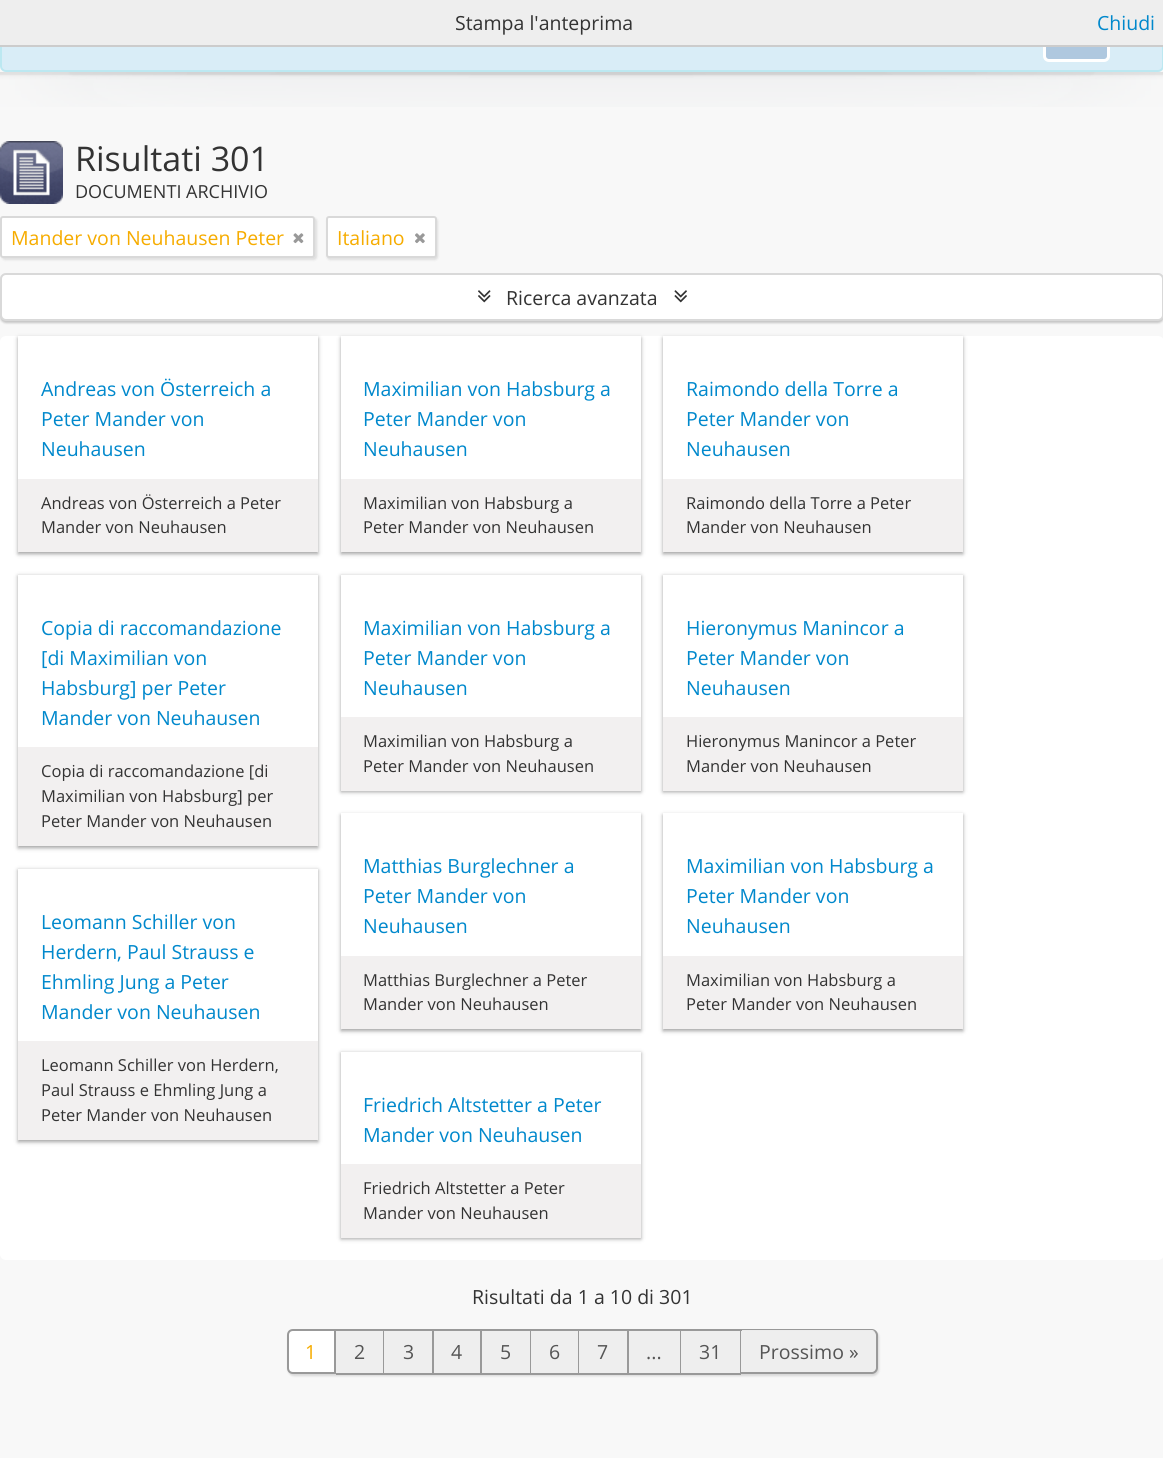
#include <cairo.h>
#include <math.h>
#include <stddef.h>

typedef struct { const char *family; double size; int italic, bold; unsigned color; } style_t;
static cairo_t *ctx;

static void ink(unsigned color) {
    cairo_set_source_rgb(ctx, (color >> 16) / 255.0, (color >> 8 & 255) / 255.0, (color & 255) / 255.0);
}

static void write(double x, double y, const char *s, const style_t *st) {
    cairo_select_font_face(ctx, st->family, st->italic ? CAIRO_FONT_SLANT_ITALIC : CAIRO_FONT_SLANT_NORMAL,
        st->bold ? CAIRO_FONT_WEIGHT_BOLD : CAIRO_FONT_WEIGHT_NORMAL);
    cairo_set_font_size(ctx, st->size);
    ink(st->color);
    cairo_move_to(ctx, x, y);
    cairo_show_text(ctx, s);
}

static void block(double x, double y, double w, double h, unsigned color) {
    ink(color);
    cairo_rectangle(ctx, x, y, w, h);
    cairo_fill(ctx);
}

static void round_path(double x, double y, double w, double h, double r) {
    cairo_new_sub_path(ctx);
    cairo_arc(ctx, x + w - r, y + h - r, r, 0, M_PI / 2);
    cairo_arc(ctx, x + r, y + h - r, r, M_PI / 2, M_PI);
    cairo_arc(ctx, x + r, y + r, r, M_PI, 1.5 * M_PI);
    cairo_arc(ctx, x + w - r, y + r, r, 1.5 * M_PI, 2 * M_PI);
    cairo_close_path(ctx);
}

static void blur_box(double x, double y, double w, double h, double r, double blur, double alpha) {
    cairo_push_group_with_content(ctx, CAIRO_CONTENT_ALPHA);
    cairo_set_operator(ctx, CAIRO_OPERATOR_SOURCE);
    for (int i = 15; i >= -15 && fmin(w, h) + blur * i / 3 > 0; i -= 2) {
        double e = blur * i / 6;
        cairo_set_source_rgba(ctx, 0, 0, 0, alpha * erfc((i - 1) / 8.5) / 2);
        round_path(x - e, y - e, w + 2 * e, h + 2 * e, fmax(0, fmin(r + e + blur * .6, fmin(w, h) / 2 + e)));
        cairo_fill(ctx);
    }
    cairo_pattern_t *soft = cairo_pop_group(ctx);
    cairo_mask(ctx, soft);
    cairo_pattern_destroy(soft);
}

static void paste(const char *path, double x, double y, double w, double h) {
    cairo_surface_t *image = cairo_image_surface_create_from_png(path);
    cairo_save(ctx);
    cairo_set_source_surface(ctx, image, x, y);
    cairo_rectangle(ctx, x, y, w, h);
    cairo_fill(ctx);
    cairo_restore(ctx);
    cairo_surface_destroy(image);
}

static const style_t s1 = {"Open Sans", 19.5, 0, 0, 0x333333};
static const style_t s2 = {"Open Sans", 19.5, 0, 0, 0x0088cc};
static const style_t s3 = {"Open Sans", 34, 0, 0, 0x333333};
static const style_t s4 = {"Open Sans", 18, 0, 0, 0x333333};
static const style_t s5 = {"Open Sans", 19.5, 0, 0, 0xf6ac00};
static const style_t s6 = {"Open Sans", 16.5, 0, 0, 0x333333};
static const style_t s7 = {"Open Sans", 19.5, 0, 0, 0x555555};

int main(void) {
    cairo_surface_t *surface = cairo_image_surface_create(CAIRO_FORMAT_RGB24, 1163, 1458);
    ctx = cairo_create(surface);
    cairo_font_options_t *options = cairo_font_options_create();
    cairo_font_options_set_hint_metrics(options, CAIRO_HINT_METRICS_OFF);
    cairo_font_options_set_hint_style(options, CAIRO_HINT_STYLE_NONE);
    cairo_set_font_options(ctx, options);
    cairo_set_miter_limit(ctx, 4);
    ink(0xf8f8f8);
    cairo_paint(ctx);
    ink(0xd9edf7);
    round_path(1, 1, 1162, 70, 5);
    cairo_fill_preserve(ctx);
    ink(0xbce8f1);
    cairo_stroke(ctx);
    ink(0xafc8df);
    round_path(1044.5, 15.5, 64, 45, 4.5);
    cairo_fill_preserve(ctx);
    ink(0xffffff);
    cairo_set_line_width(ctx, 3);
    cairo_stroke(ctx);
    paste("pic1.png", 0, 72, 1163, 35);
    block(0, 0, 1163, 45, 0xeeeeee);
    block(0, 45, 1163, 2, 0xcccccc);
    write(455, 30, "Stampa l'anteprima", &s1);
    write(1097, 30, "Chiudi", &s2);
    paste("pic2.png", 0, 141, 63, 63);
    write(75, 171, "Risultati 301", &s3);
    write(75, 198, "DOCUMENTI ARCHIVIO", &s4);
    ink(0x000000);
    blur_box(2, 218, 315, 42, 3, 1, 0.1);
    ink(0xffffff);
    round_path(1, 217, 313, 40, 2);
    cairo_fill_preserve(ctx);
    ink(0xd9d9d9);
    cairo_set_line_width(ctx, 2);
    cairo_stroke(ctx);
    write(11, 245, "Mander von Neuhausen Peter", &s5);
    paste("pic3.png", 293, 233, 11, 11);
    ink(0x000000);
    blur_box(327, 218, 111, 42, 3, 1, 0.1);
    ink(0xffffff);
    round_path(327, 217, 109, 40, 2);
    cairo_fill_preserve(ctx);
    ink(0xd9d9d9);
    cairo_stroke(ctx);
    write(337, 245, "Italiano", &s5);
    paste("pic4.png", 415, 233, 10, 11);
    ink(0x000000);
    blur_box(0, 275, 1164, 48, 6, 1, 0.2);
    ink(0xffffff);
    round_path(1, 274, 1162, 46, 5);
    cairo_fill_preserve(ctx);
    ink(0xd9d9d9);
    cairo_stroke(ctx);
    paste("pic5.png", 478, 290, 13, 13);
    write(506, 305, "Ricerca avanzata", &s1);
    paste("pic6.png", 674, 290, 13, 13);
    ink(0xffffff);
    round_path(0, 336, 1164, 924, 6);
    cairo_fill(ctx);
    cairo_save(ctx);
    cairo_set_fill_rule(ctx, CAIRO_FILL_RULE_EVEN_ODD);
    cairo_new_path(ctx);
    cairo_move_to(ctx, 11, 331);
    cairo_line_to(ctx, 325, 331);
    cairo_line_to(ctx, 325, 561);
    cairo_line_to(ctx, 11, 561);
    cairo_close_path(ctx);
    cairo_move_to(ctx, 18, 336);
    cairo_line_to(ctx, 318, 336);
    cairo_line_to(ctx, 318, 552);
    cairo_line_to(ctx, 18, 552);
    cairo_close_path(ctx);
    cairo_clip(ctx);
    ink(0x191919);
    blur_box(18, 338, 300, 216, 0, 2, 0.4);
    cairo_restore(ctx);
    write(41, 396, "Andreas von Österreich a", &s2);
    write(41, 426, "Peter Mander von", &s2);
    write(41, 456, "Neuhausen", &s2);
    block(18, 479, 300, 73, 0xf2f0f0);
    write(41, 509, "Andreas von Österreich a Peter", &s6);
    write(41, 533, "Mander von Neuhausen", &s6);
    ink(0x191919);
    blur_box(341, 338, 300, 216, 0, 2, 0.4);
    block(341, 336, 300, 143, 0xffffff);
    write(363, 396, "Maximilian von Habsburg a", &s2);
    write(363, 426, "Peter Mander von", &s2);
    write(363, 456, "Neuhausen", &s2);
    block(341, 479, 300, 73, 0xf2f0f0);
    write(363, 509, "Maximilian von Habsburg a", &s6);
    write(363, 533, "Peter Mander von Neuhausen", &s6);
    cairo_save(ctx);
    cairo_set_fill_rule(ctx, CAIRO_FILL_RULE_EVEN_ODD);
    cairo_new_path(ctx);
    cairo_move_to(ctx, 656, 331);
    cairo_line_to(ctx, 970, 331);
    cairo_line_to(ctx, 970, 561);
    cairo_line_to(ctx, 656, 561);
    cairo_close_path(ctx);
    cairo_move_to(ctx, 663, 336);
    cairo_line_to(ctx, 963, 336);
    cairo_line_to(ctx, 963, 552);
    cairo_line_to(ctx, 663, 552);
    cairo_close_path(ctx);
    cairo_clip(ctx);
    ink(0x191919);
    blur_box(663, 338, 300, 216, 0, 2, 0.4);
    cairo_restore(ctx);
    write(686, 396, "Raimondo della Torre a", &s2);
    write(686, 426, "Peter Mander von", &s2);
    write(686, 456, "Neuhausen", &s2);
    block(663, 479, 300, 73, 0xf2f0f0);
    write(686, 509, "Raimondo della Torre a Peter", &s6);
    write(686, 533, "Mander von Neuhausen", &s6);
    cairo_save(ctx);
    cairo_set_fill_rule(ctx, CAIRO_FILL_RULE_EVEN_ODD);
    cairo_new_path(ctx);
    cairo_move_to(ctx, 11, 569);
    cairo_line_to(ctx, 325, 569);
    cairo_line_to(ctx, 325, 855);
    cairo_line_to(ctx, 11, 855);
    cairo_close_path(ctx);
    cairo_move_to(ctx, 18, 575);
    cairo_line_to(ctx, 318, 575);
    cairo_line_to(ctx, 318, 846);
    cairo_line_to(ctx, 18, 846);
    cairo_close_path(ctx);
    cairo_clip(ctx);
    ink(0x191919);
    blur_box(18, 576, 300, 272, 0, 2, 0.4);
    cairo_restore(ctx);
    write(41, 635, "Copia di raccomandazione", &s2);
    write(41, 665, "[di Maximilian von", &s2);
    write(41, 695, "Habsburg] per Peter", &s2);
    write(41, 725, "Mander von Neuhausen", &s2);
    block(18, 747, 300, 99, 0xf2f0f0);
    write(41, 777, "Copia di raccomandazione [di", &s6);
    write(41, 802, "Maximilian von Habsburg] per", &s6);
    write(41, 827, "Peter Mander von Neuhausen", &s6);
    ink(0x191919);
    blur_box(341, 576, 300, 216, 0, 2, 0.4);
    block(341, 575, 300, 142, 0xffffff);
    write(363, 635, "Maximilian von Habsburg a", &s2);
    write(363, 665, "Peter Mander von", &s2);
    write(363, 695, "Neuhausen", &s2);
    block(341, 717, 300, 74, 0xf2f0f0);
    write(363, 747, "Maximilian von Habsburg a", &s6);
    write(363, 772, "Peter Mander von Neuhausen", &s6);
    ink(0x191919);
    blur_box(663, 576, 300, 216, 0, 2, 0.4);
    block(663, 575, 300, 142, 0xffffff);
    write(686, 635, "Hieronymus Manincor a", &s2);
    write(686, 665, "Peter Mander von", &s2);
    write(686, 695, "Neuhausen", &s2);
    block(663, 717, 300, 74, 0xf2f0f0);
    write(686, 747, "Hieronymus Manincor a Peter", &s6);
    write(686, 772, "Mander von Neuhausen", &s6);
    cairo_save(ctx);
    cairo_set_fill_rule(ctx, CAIRO_FILL_RULE_EVEN_ODD);
    cairo_new_path(ctx);
    cairo_move_to(ctx, 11, 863);
    cairo_line_to(ctx, 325, 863);
    cairo_line_to(ctx, 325, 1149);
    cairo_line_to(ctx, 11, 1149);
    cairo_close_path(ctx);
    cairo_move_to(ctx, 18, 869);
    cairo_line_to(ctx, 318, 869);
    cairo_line_to(ctx, 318, 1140);
    cairo_line_to(ctx, 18, 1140);
    cairo_close_path(ctx);
    cairo_clip(ctx);
    ink(0x191919);
    blur_box(18, 870, 300, 272, 0, 2, 0.4);
    cairo_restore(ctx);
    write(41, 929, "Leomann Schiller von", &s2);
    write(41, 959, "Herdern, Paul Strauss e", &s2);
    write(41, 989, "Ehmling Jung a Peter", &s2);
    write(41, 1019, "Mander von Neuhausen", &s2);
    block(18, 1041, 300, 99, 0xf2f0f0);
    write(41, 1071, "Leomann Schiller von Herdern,", &s6);
    write(41, 1096, "Paul Strauss e Ehmling Jung a", &s6);
    write(41, 1121, "Peter Mander von Neuhausen", &s6);
    ink(0x191919);
    blur_box(341, 815, 300, 216, 0, 2, 0.4);
    block(341, 813, 300, 143, 0xffffff);
    write(363, 873, "Matthias Burglechner a", &s2);
    write(363, 903, "Peter Mander von", &s2);
    write(363, 933, "Neuhausen", &s2);
    block(341, 956, 300, 73, 0xf2f0f0);
    write(363, 986, "Matthias Burglechner a Peter", &s6);
    write(363, 1010, "Mander von Neuhausen", &s6);
    cairo_save(ctx);
    cairo_set_fill_rule(ctx, CAIRO_FILL_RULE_EVEN_ODD);
    cairo_new_path(ctx);
    cairo_move_to(ctx, 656, 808);
    cairo_line_to(ctx, 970, 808);
    cairo_line_to(ctx, 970, 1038);
    cairo_line_to(ctx, 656, 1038);
    cairo_close_path(ctx);
    cairo_move_to(ctx, 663, 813);
    cairo_line_to(ctx, 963, 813);
    cairo_line_to(ctx, 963, 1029);
    cairo_line_to(ctx, 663, 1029);
    cairo_close_path(ctx);
    cairo_clip(ctx);
    ink(0x191919);
    blur_box(663, 815, 300, 216, 0, 2, 0.4);
    cairo_restore(ctx);
    write(686, 873, "Maximilian von Habsburg a", &s2);
    write(686, 903, "Peter Mander von", &s2);
    write(686, 933, "Neuhausen", &s2);
    block(663, 956, 300, 73, 0xf2f0f0);
    write(686, 986, "Maximilian von Habsburg a", &s6);
    write(686, 1010, "Peter Mander von Neuhausen", &s6);
    ink(0x191919);
    blur_box(341, 1053, 300, 186, 0, 2, 0.4);
    block(341, 1052, 300, 112, 0xffffff);
    write(363, 1112, "Friedrich Altstetter a Peter", &s2);
    write(363, 1142, "Mander von Neuhausen", &s2);
    block(341, 1164, 300, 74, 0xf2f0f0);
    write(363, 1194, "Friedrich Altstetter a Peter", &s6);
    write(363, 1219, "Mander von Neuhausen", &s6);
    write(472, 1304, "Risultati da 1 a 10 di 301", &s1);
    ink(0x191919);
    blur_box(288, 1331, 591, 45, 6, 1, 0.15);
    ink(0xffffff);
    cairo_new_path(ctx);
    cairo_move_to(ctx, 293, 1330);
    cairo_line_to(ctx, 335, 1330);
    cairo_line_to(ctx, 335, 1373);
    cairo_line_to(ctx, 293, 1373);
    cairo_curve_to(ctx, 290, 1373, 288, 1371, 288, 1368);
    cairo_line_to(ctx, 288, 1335);
    cairo_curve_to(ctx, 288, 1332, 290, 1330, 293, 1330);
    cairo_close_path(ctx);
    cairo_fill_preserve(ctx);
    ink(0x999999);
    cairo_stroke(ctx);
    write(305, 1359, "1", &s5);
    block(336, 1331, 47, 42, 0xeeeeee);
    block(336, 1329, 405, 2, 0x999999);
    block(383, 1329, 1, 45, 0x999999);
    block(336, 1373, 48, 2, 0x999999);
    write(354, 1359, "2", &s7);
    block(384, 1331, 48, 42, 0xeeeeee);
    block(432, 1329, 2, 45, 0x999999);
    block(384, 1373, 50, 2, 0x999999);
    write(403, 1359, "3", &s7);
    block(434, 1331, 46, 42, 0xeeeeee);
    block(480, 1329, 2, 45, 0x999999);
    block(434, 1373, 48, 2, 0x999999);
    write(451, 1359, "4", &s7);
    block(482, 1331, 48, 42, 0xeeeeee);
    block(530, 1329, 1, 45, 0x999999);
    block(482, 1373, 49, 2, 0x999999);
    write(500, 1359, "5", &s7);
    block(531, 1331, 47, 42, 0xeeeeee);
    block(578, 1329, 1, 45, 0x999999);
    block(531, 1373, 48, 2, 0x999999);
    write(549, 1359, "6", &s7);
    block(579, 1331, 48, 42, 0xeeeeee);
    block(627, 1329, 2, 45, 0x999999);
    block(579, 1373, 50, 2, 0x999999);
    write(597, 1359, "7", &s7);
    block(629, 1331, 51, 42, 0xeeeeee);
    block(680, 1329, 1, 45, 0x999999);
    block(629, 1373, 52, 2, 0x999999);
    write(646, 1359, "...", &s7);
    block(681, 1331, 59, 42, 0xeeeeee);
    block(740, 1329, 2, 45, 0x999999);
    block(681, 1373, 60, 2, 0x999999);
    write(699, 1359, "31", &s7);
    ink(0xeeeeee);
    cairo_new_path(ctx);
    cairo_move_to(ctx, 741, 1331);
    cairo_line_to(ctx, 871, 1331);
    cairo_curve_to(ctx, 874, 1331, 876, 1333, 876, 1336);
    cairo_line_to(ctx, 876, 1368);
    cairo_curve_to(ctx, 876, 1371, 874, 1373, 871, 1373);
    cairo_line_to(ctx, 741, 1373);
    cairo_close_path(ctx);
    cairo_fill(ctx);
    ink(0x999999);
    cairo_set_fill_rule(ctx, CAIRO_FILL_RULE_EVEN_ODD);
    cairo_new_path(ctx);
    cairo_move_to(ctx, 741, 1329);
    cairo_line_to(ctx, 872, 1329);
    cairo_curve_to(ctx, 875, 1329, 878, 1332, 878, 1335);
    cairo_line_to(ctx, 878, 1368);
    cairo_curve_to(ctx, 878, 1371, 875, 1374, 872, 1374);
    cairo_line_to(ctx, 741, 1374);
    cairo_close_path(ctx);
    cairo_move_to(ctx, 741, 1330);
    cairo_line_to(ctx, 872, 1330);
    cairo_curve_to(ctx, 874, 1330, 876, 1333, 876, 1335);
    cairo_line_to(ctx, 876, 1368);
    cairo_curve_to(ctx, 876, 1370, 874, 1372, 872, 1372);
    cairo_line_to(ctx, 741, 1372);
    cairo_close_path(ctx);
    cairo_fill(ctx);
    write(759, 1359, "Prossimo »", &s7);
    cairo_surface_write_to_png(surface, "screenshot.png");
    cairo_font_options_destroy(options);
    cairo_destroy(ctx);
    cairo_surface_destroy(surface);
    return 0;
}
